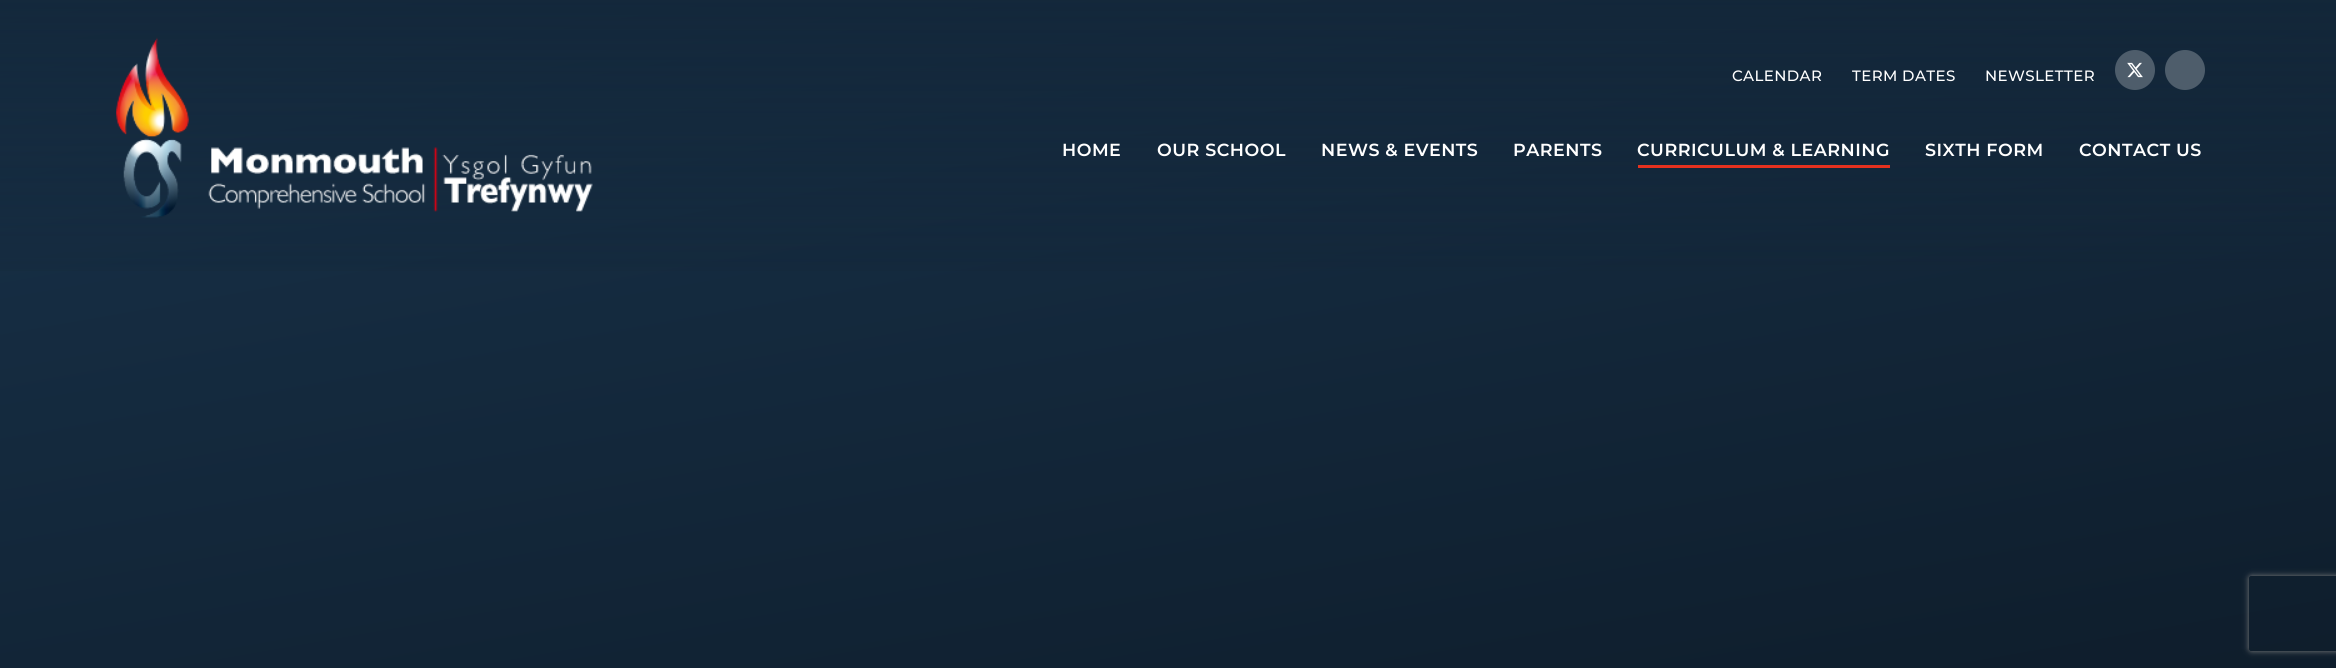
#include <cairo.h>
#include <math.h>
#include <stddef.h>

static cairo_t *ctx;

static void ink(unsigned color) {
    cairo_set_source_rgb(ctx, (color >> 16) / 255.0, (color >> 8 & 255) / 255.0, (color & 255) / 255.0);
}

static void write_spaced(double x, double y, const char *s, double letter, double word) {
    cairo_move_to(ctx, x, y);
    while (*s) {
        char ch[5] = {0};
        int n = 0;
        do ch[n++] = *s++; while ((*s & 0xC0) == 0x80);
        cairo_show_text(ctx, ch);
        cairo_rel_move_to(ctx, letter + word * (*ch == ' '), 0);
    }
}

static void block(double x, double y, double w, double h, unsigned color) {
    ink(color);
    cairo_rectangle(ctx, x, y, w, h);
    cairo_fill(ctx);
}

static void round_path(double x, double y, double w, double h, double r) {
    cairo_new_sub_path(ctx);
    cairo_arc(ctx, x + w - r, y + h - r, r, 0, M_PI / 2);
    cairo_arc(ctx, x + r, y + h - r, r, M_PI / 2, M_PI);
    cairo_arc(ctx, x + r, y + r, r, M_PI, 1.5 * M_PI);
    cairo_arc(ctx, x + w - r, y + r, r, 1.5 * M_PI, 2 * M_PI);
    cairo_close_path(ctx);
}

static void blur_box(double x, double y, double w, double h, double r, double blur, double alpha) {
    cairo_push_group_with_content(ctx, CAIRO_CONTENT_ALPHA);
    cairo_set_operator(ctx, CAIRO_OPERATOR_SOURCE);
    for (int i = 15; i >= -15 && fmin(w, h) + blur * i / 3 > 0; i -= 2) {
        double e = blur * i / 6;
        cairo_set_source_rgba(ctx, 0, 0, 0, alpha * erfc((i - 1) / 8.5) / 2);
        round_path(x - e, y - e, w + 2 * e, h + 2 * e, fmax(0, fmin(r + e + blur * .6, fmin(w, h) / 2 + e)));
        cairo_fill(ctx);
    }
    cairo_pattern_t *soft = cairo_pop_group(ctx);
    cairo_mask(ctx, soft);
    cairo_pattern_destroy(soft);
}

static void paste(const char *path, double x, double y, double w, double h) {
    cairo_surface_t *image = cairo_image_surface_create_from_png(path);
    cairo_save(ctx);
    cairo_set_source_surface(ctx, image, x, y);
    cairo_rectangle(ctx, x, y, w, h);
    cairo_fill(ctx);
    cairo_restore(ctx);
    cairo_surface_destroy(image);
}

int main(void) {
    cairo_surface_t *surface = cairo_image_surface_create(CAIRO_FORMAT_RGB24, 2336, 668);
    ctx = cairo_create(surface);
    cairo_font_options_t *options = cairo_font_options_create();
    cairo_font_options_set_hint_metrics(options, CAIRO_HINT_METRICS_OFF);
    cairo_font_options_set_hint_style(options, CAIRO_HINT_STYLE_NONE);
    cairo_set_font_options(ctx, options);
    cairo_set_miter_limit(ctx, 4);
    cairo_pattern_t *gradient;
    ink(0xffffff);
    cairo_paint(ctx);
    gradient = cairo_pattern_create_linear(1053, -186, 1283, 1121);
    cairo_pattern_add_color_stop_rgba(gradient, 0, 0.094, 0.196, 0.29, 1);
    cairo_pattern_add_color_stop_rgba(gradient, 1, 0.047, 0.094, 0.141, 1);
    cairo_set_source(ctx, gradient);
    cairo_pattern_destroy(gradient);
    cairo_rectangle(ctx, 0, 0, 2336, 668);
    cairo_fill(ctx);
    gradient = cairo_pattern_create_linear(1168, 0, 1168, 374);
    cairo_pattern_add_color_stop_rgba(gradient, 0, 0.071, 0.145, 0.216, 0.75);
    cairo_pattern_add_color_stop_rgba(gradient, 1, 0.071, 0.145, 0.216, 0);
    cairo_set_source(ctx, gradient);
    cairo_pattern_destroy(gradient);
    cairo_rectangle(ctx, 0, 0, 2336, 271);
    cairo_fill(ctx);
    paste("pic1.png", 116, 37, 477, 181);
    cairo_select_font_face(ctx, "Montserrat Medium", CAIRO_FONT_SLANT_NORMAL, CAIRO_FONT_WEIGHT_NORMAL);
    cairo_set_font_size(ctx, 15);
    ink(0xffffff);
    write_spaced(1732, 81, "CALENDAR", 0.4, 0);
    write_spaced(1852, 81, "TERM DATES", 0.4, 0);
    write_spaced(1985, 81, "NEWSLETTER", 0.4, 0);
    ink(0x4e5d6b);
    cairo_new_path(ctx);
    cairo_arc(ctx, 2135, 70, 20, 0, 2 * M_PI);
    cairo_fill(ctx);
    paste("pic2.png", 2127, 62, 16, 16);
    cairo_arc(ctx, 2185, 70, 20, 0, 2 * M_PI);
    cairo_fill(ctx);
    cairo_select_font_face(ctx, "Montserrat SemiBold", CAIRO_FONT_SLANT_NORMAL, CAIRO_FONT_WEIGHT_NORMAL);
    cairo_set_font_size(ctx, 17.5);
    ink(0xffffff);
    write_spaced(1062, 156, "HOME", 0.5, 0);
    write_spaced(1157, 156, "OUR SCHOOL", 0.5, 0);
    write_spaced(1321, 156, "NEWS & EVENTS", 0.5, 0);
    write_spaced(1513, 156, "PARENTS", 0.5, 0);
    write_spaced(1637, 156, "CURRICULUM & LEARNING", 0.5, 0);
    block(1638, 165, 252, 3, 0xe5311f);
    ink(0xffffff);
    write_spaced(1925, 156, "SIXTH FORM", 0.5, 0);
    write_spaced(2079, 156, "CONTACT US", 0.5, 0);
    cairo_save(ctx);
    cairo_set_fill_rule(ctx, CAIRO_FILL_RULE_EVEN_ODD);
    cairo_new_path(ctx);
    cairo_move_to(ctx, 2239, 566);
    cairo_line_to(ctx, 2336, 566);
    cairo_line_to(ctx, 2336, 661);
    cairo_line_to(ctx, 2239, 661);
    cairo_close_path(ctx);
    cairo_move_to(ctx, 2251.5, 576);
    cairo_line_to(ctx, 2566.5, 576);
    cairo_curve_to(ctx, 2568, 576, 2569, 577, 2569, 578.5);
    cairo_line_to(ctx, 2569, 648.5);
    cairo_curve_to(ctx, 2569, 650, 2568, 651, 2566.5, 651);
    cairo_line_to(ctx, 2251.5, 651);
    cairo_curve_to(ctx, 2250, 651, 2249, 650, 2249, 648.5);
    cairo_line_to(ctx, 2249, 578.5);
    cairo_curve_to(ctx, 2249, 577, 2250, 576, 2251.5, 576);
    cairo_close_path(ctx);
    cairo_clip(ctx);
    ink(0x808080);
    blur_box(2249, 576, 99, 75, 2.5, 3, 1);
    cairo_restore(ctx);
    cairo_surface_write_to_png(surface, "screenshot.png");
    cairo_font_options_destroy(options);
    cairo_destroy(ctx);
    cairo_surface_destroy(surface);
    return 0;
}
